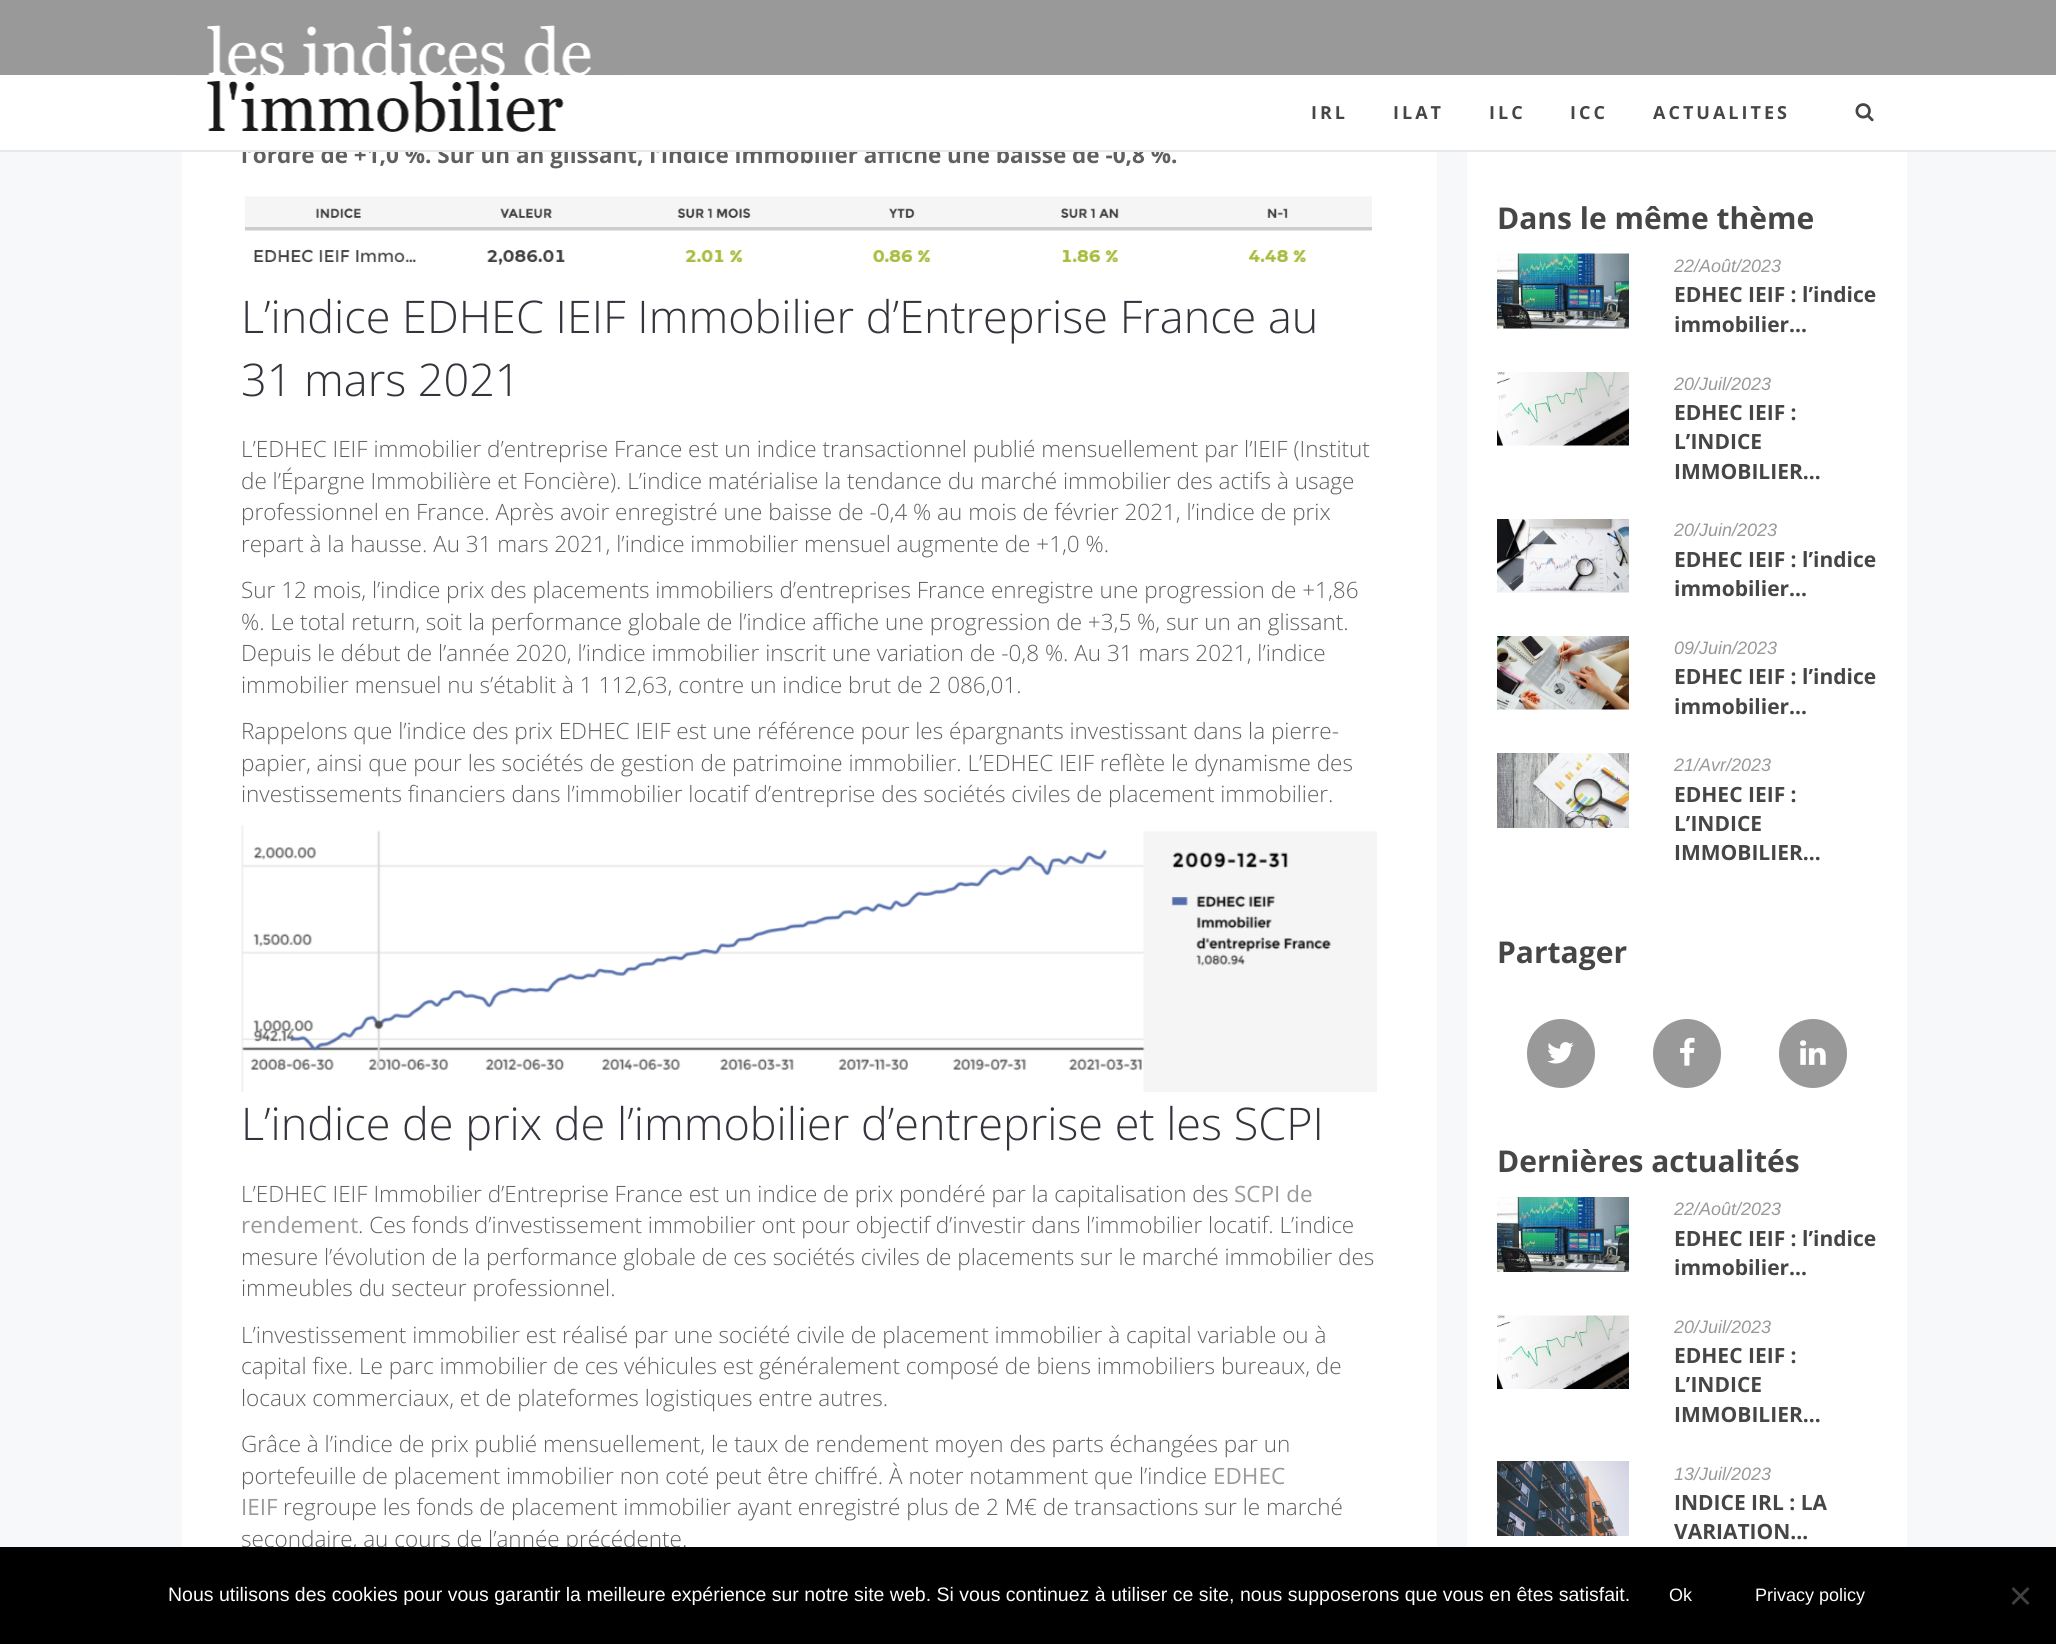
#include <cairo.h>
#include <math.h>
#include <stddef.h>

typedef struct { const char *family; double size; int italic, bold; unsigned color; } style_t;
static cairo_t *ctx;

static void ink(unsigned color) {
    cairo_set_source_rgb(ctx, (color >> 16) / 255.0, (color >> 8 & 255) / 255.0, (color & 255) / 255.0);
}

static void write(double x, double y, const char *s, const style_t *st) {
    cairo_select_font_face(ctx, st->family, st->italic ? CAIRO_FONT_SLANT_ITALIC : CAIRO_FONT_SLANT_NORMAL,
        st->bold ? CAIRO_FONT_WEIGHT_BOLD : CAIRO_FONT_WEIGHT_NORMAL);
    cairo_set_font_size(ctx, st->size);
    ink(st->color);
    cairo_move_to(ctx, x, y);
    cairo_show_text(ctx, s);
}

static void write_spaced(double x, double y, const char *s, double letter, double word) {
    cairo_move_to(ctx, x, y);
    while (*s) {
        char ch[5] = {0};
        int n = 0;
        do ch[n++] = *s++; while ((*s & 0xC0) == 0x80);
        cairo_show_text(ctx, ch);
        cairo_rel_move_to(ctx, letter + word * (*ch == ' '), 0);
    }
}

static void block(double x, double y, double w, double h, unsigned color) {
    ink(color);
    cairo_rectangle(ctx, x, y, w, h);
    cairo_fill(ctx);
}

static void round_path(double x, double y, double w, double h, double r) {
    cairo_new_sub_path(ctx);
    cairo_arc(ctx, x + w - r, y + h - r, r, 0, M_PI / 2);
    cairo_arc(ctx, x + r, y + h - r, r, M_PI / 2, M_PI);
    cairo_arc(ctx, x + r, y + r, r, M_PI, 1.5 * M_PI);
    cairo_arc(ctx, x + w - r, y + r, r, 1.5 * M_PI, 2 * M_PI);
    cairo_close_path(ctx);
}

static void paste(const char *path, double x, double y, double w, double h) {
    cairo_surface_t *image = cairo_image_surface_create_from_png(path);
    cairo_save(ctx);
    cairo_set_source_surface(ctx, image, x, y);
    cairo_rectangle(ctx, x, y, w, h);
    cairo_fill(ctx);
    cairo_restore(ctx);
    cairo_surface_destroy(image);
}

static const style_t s1 = {"Open Sans", 22.5, 0, 1, 0x606060};
static const style_t s2 = {"Open Sans Light", 45, 0, 0, 0x34343c};
static const style_t s3 = {"Open Sans Light", 22.5, 0, 0, 0x606060};
static const style_t s4 = {"Open Sans", 22.5, 0, 0, 0x999999};
static const style_t s5 = {"Open Sans", 30, 0, 1, 0x474646};
static const style_t s6 = {"Liberation Sans", 18, 1, 0, 0x999999};
static const style_t s7 = {"Open Sans", 21, 0, 1, 0x474646};
static const style_t s8 = {"Liberation Sans", 19.5, 0, 0, 0xffffff};
static const style_t s9 = {"Liberation Sans", 18, 0, 0, 0xffffff};

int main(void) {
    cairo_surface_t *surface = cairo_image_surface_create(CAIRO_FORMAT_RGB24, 2056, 1644);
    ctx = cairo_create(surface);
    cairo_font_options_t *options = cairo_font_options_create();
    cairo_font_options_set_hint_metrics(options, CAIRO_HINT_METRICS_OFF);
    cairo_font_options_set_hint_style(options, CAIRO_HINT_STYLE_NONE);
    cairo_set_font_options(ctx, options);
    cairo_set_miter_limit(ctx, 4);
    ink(0xf7f8fa);
    cairo_paint(ctx);
    block(182, 152, 1255, 1395, 0xffffff);
    write(241, 163, "l’ordre de +1,0 %. Sur un an glissant, l’indice immobilier affiche une baisse de -0,8 %.", &s1);
    block(0, 75, 2056, 75, 0xffffff);
    block(0, 150, 2056, 2, 0xe8e8ec);
    block(0, 0, 2056, 75, 0x999999);
    paste("pic1.png", 175, 25, 448, 108);
    paste("pic2.png", 1855, 103, 19, 19);
    cairo_set_font_size(ctx, 18);
    ink(0x474646);
    write_spaced(1311, 119, "IRL", 3, 0);
    write_spaced(1393, 119, "ILAT", 3, 0);
    write_spaced(1489, 119, "ILC", 3, 0);
    write_spaced(1570, 119, "ICC", 3, 0);
    write_spaced(1653, 119, "ACTUALITES", 3, 0);
    paste("pic3.png", 245, 196, 1127, 69);
    write(241, 333, "L’indice EDHEC IEIF Immobilier d’Entreprise France au", &s2);
    write(241, 396, "31 mars 2021", &s2);
    write(241, 457, "L’EDHEC IEIF immobilier d’entreprise France est un indice transactionnel publié mensuellement par l’IEIF (Institut", &s3);
    write(241, 489, "de l’Épargne Immobilière et Foncière). L’indice matérialise la tendance du marché immobilier des actifs à usage", &s3);
    write(241, 520, "professionnel en France. Après avoir enregistré une baisse de -0,4 % au mois de février 2021, l’indice de prix", &s3);
    write(241, 552, "repart à la hausse. Au 31 mars 2021, l’indice immobilier mensuel augmente de +1,0 %.", &s3);
    write(241, 598, "Sur 12 mois, l’indice prix des placements immobiliers d’entreprises France enregistre une progression de +1,86", &s3);
    write(241, 630, "%. Le total return, soit la performance globale de l’indice affiche une progression de +3,5 %, sur un an glissant.", &s3);
    write(241, 661, "Depuis le début de l’année 2020, l’indice immobilier inscrit une variation de -0,8 %. Au 31 mars 2021, l’indice", &s3);
    write(241, 693, "immobilier mensuel nu s’établit à 1 112,63, contre un indice brut de 2 086,01.", &s3);
    write(241, 739, "Rappelons que l’indice des prix EDHEC IEIF est une référence pour les épargnants investissant dans la pierre-", &s3);
    write(241, 771, "papier, ainsi que pour les sociétés de gestion de patrimoine immobilier. L’EDHEC IEIF reflète le dynamisme des", &s3);
    write(241, 802, "investissements financiers dans l’immobilier locatif d’entreprise des sociétés civiles de placement immobilier.", &s3);
    paste("pic4.png", 241, 825, 1136, 267);
    write(241, 1140, "L’indice de prix de l’immobilier d’entreprise et les SCPI", &s2);
    write(241, 1202, "L’EDHEC IEIF Immobilier d’Entreprise France est un indice de prix pondéré par la capitalisation des", &s3);
    write(1234, 1202, "SCPI de", &s4);
    write(241, 1233, "rendement", &s4);
    write(358, 1233, ". Ces fonds d’investissement immobilier ont pour objectif d’investir dans l’immobilier locatif. L’indice", &s3);
    write(241, 1265, "mesure l’évolution de la performance globale de ces sociétés civiles de placements sur le marché immobilier des", &s3);
    write(241, 1296, "immeubles du secteur professionnel.", &s3);
    write(241, 1343, "L’investissement immobilier est réalisé par une société civile de placement immobilier à capital variable ou à", &s3);
    write(241, 1374, "capital fixe. Le parc immobilier de ces véhicules est généralement composé de biens immobiliers bureaux, de", &s3);
    write(241, 1406, "locaux commerciaux, et de plateformes logistiques entre autres.", &s3);
    write(241, 1452, "Grâce à l’indice de prix publié mensuellement, le taux de rendement moyen des parts échangées par un", &s3);
    write(241, 1484, "portefeuille de placement immobilier non coté peut être chiffré. À noter notamment que l’indice", &s3);
    write(1213, 1484, "EDHEC", &s4);
    write(241, 1515, "IEIF", &s4);
    write(283, 1515, "regroupe les fonds de placement immobilier ayant enregistré plus de 2 M€ de transactions sur le marché", &s3);
    write(241, 1547, "secondaire, au cours de l’année précédente.", &s3);
    block(1467, 152, 440, 1395, 0xffffff);
    write(1497, 229, "Dans le même thème", &s5);
    paste("pic5.png", 1497, 253, 132, 76);
    write(1674, 272, "22/Août/2023", &s6);
    write(1674, 302, "EDHEC IEIF : l’indice", &s7);
    write(1674, 332, "immobilier…", &s7);
    paste("pic6.png", 1497, 372, 132, 74);
    write(1674, 390, "20/Juil/2023", &s6);
    write(1674, 420, "EDHEC IEIF :", &s7);
    write(1674, 449, "L’INDICE", &s7);
    write(1674, 479, "IMMOBILIER…", &s7);
    paste("pic7.png", 1497, 519, 132, 74);
    write(1674, 536, "20/Juin/2023", &s6);
    write(1674, 567, "EDHEC IEIF : l’indice", &s7);
    write(1674, 596, "immobilier…", &s7);
    paste("pic8.png", 1497, 636, 132, 74);
    write(1674, 654, "09/Juin/2023", &s6);
    write(1674, 684, "EDHEC IEIF : l’indice", &s7);
    write(1674, 714, "immobilier…", &s7);
    paste("pic9.png", 1497, 753, 132, 75);
    write(1674, 771, "21/Avr/2023", &s6);
    write(1674, 802, "EDHEC IEIF :", &s7);
    write(1674, 831, "L’INDICE", &s7);
    write(1674, 860, "IMMOBILIER…", &s7);
    write(1497, 963, "Partager", &s5);
    ink(0x999999);
    round_path(1527, 1019, 68, 69, 34);
    cairo_fill(ctx);
    paste("pic10.png", 1547, 1042, 27, 22);
    round_path(1653, 1019, 68, 69, 34);
    cairo_fill(ctx);
    paste("pic11.png", 1680, 1037, 15, 29);
    round_path(1779, 1019, 68, 69, 34);
    cairo_fill(ctx);
    paste("pic12.png", 1800, 1040, 26, 25);
    write(1497, 1172, "Dernières actualités", &s5);
    paste("pic13.png", 1497, 1197, 132, 75);
    write(1674, 1215, "22/Août/2023", &s6);
    write(1674, 1246, "EDHEC IEIF : l’indice", &s7);
    write(1674, 1275, "immobilier…", &s7);
    paste("pic14.png", 1497, 1315, 132, 74);
    write(1674, 1333, "20/Juil/2023", &s6);
    write(1674, 1363, "EDHEC IEIF :", &s7);
    write(1674, 1392, "L’INDICE", &s7);
    write(1674, 1422, "IMMOBILIER…", &s7);
    paste("pic15.png", 1497, 1461, 132, 75);
    write(1674, 1480, "13/Juil/2023", &s6);
    write(1674, 1510, "INDICE IRL : LA", &s7);
    write(1674, 1539, "VARIATION…", &s7);
    block(0, 1547, 2056, 97, 0x000000);
    write(168, 1601, "Nous utilisons des cookies pour vous garantir la meilleure expérience sur notre site web. Si vous continuez à utiliser ce site, nous supposerons que vous en êtes satisfait.", &s8);
    write(1669, 1601, "Ok", &s9);
    write(1755, 1601, "Privacy policy", &s9);
    ink(0x404040);
    cairo_new_path(ctx);
    cairo_move_to(ctx, 2027.5, 1587);
    cairo_line_to(ctx, 2029.5, 1589);
    cairo_line_to(ctx, 2013.5, 1605);
    cairo_line_to(ctx, 2011.5, 1603);
    cairo_close_path(ctx);
    cairo_fill(ctx);
    cairo_new_path(ctx);
    cairo_move_to(ctx, 2011.5, 1589);
    cairo_line_to(ctx, 2013.5, 1587);
    cairo_line_to(ctx, 2029.5, 1603);
    cairo_line_to(ctx, 2027.5, 1605);
    cairo_close_path(ctx);
    cairo_fill(ctx);
    cairo_surface_write_to_png(surface, "screenshot.png");
    cairo_font_options_destroy(options);
    cairo_destroy(ctx);
    cairo_surface_destroy(surface);
    return 0;
}
